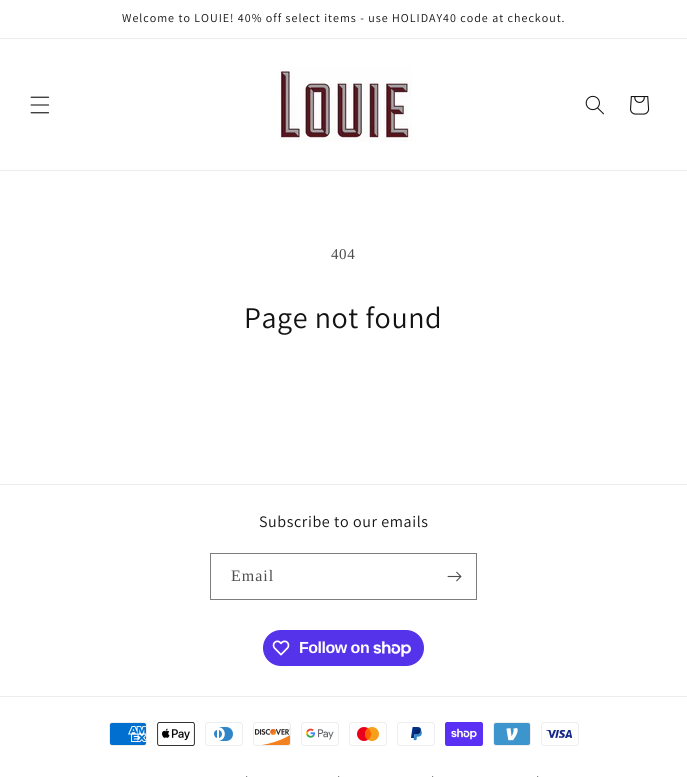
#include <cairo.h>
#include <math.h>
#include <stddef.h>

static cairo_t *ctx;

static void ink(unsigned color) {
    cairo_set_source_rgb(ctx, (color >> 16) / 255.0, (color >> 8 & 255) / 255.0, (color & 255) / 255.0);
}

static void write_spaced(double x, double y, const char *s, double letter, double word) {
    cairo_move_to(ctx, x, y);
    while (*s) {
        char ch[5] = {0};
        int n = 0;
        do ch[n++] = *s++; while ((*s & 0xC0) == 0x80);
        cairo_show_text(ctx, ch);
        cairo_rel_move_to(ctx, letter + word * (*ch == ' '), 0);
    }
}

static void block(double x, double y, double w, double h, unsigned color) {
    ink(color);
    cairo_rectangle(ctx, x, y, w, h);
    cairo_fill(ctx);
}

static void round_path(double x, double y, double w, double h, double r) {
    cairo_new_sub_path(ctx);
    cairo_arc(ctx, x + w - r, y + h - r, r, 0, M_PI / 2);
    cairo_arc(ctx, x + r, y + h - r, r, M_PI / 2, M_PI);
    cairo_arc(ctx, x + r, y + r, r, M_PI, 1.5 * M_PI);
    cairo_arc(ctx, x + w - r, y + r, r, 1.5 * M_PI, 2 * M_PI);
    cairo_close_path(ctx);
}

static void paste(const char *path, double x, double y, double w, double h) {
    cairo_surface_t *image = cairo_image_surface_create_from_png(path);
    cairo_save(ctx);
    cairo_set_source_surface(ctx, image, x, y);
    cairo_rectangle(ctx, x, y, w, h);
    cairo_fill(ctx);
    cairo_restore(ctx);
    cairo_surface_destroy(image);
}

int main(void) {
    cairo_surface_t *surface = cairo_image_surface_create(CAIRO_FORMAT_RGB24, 687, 777);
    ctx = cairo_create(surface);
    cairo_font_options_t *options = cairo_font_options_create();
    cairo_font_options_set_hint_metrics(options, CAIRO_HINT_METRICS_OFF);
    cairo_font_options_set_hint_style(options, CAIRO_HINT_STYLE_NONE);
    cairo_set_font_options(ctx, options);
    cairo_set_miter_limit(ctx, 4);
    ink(0xffffff);
    cairo_paint(ctx);
    block(0, 38, 687, 1, 0xececec);
    cairo_select_font_face(ctx, "Assistant", CAIRO_FONT_SLANT_NORMAL, CAIRO_FONT_WEIGHT_NORMAL);
    cairo_set_font_size(ctx, 12);
    ink(0x121212);
    write_spaced(122, 22, "Welcome to LOUIE! 40% off select items - use HOLIDAY40 code at checkout.", 1, 0);
    block(0, 170, 687, 1, 0xececec);
    paste("pic1.png", 30, 96, 20, 18);
    paste("pic2.png", 279, 67, 133, 75);
    paste("pic3.png", 585, 95, 19, 20);
    paste("pic4.png", 630, 96, 20, 19);
    cairo_select_font_face(ctx, "Liberation Serif", CAIRO_FONT_SLANT_NORMAL, CAIRO_FONT_WEIGHT_NORMAL);
    cairo_set_font_size(ctx, 15);
    ink(0x4d4d4d);
    write_spaced(331, 259, "404", 0.6, 0);
    cairo_select_font_face(ctx, "Assistant", CAIRO_FONT_SLANT_NORMAL, CAIRO_FONT_WEIGHT_NORMAL);
    cairo_set_font_size(ctx, 30);
    ink(0x121212);
    write_spaced(244, 328, "Page not found", 0.6, 0);
    block(0, 484, 687, 1, 0xececec);
    cairo_set_font_size(ctx, 16);
    ink(0x121212);
    write_spaced(259, 527, "Subscribe to our emails", 0.6, 0);
    cairo_rectangle(ctx, 210.5, 553.5, 266, 46);
    ink(0x7d7d7d);
    cairo_set_line_width(ctx, 1);
    cairo_stroke(ctx);
    cairo_select_font_face(ctx, "Liberation Serif", CAIRO_FONT_SLANT_NORMAL, CAIRO_FONT_WEIGHT_NORMAL);
    ink(0x4d4d4d);
    write_spaced(231, 581, "Email", 1, 0);
    paste("pic5.png", 447, 571, 15, 11);
    ink(0x5433eb);
    round_path(263, 630, 161, 36, 18);
    cairo_fill(ctx);
    paste("pic6.png", 272, 640, 18, 16);
    cairo_select_font_face(ctx, "Liberation Sans", CAIRO_FONT_SLANT_NORMAL, CAIRO_FONT_WEIGHT_BOLD);
    ink(0xffffff);
    write_spaced(299, 653, "Follow on", -0.5, 0);
    paste("pic7.png", 373, 641, 38, 16);
    block(0, 696, 687, 1, 0xececec);
    paste("pic8.png", 109, 722, 38, 24);
    paste("pic9.png", 157, 722, 38, 24);
    paste("pic10.png", 205, 722, 38, 24);
    paste("pic11.png", 253, 722, 38, 24);
    paste("pic12.png", 301, 722, 38, 24);
    paste("pic13.png", 349, 722, 38, 24);
    paste("pic14.png", 397, 722, 38, 24);
    paste("pic15.png", 445, 722, 38, 24);
    paste("pic16.png", 493, 722, 38, 24);
    paste("pic17.png", 541, 722, 38, 24);
    cairo_select_font_face(ctx, "Liberation Serif", CAIRO_FONT_SLANT_NORMAL, CAIRO_FONT_WEIGHT_NORMAL);
    cairo_set_font_size(ctx, 10);
    ink(0x4d4d4d);
    write_spaced(245, 780, "·", 1, 0);
    write_spaced(337, 780, "·", 1, 0);
    write_spaced(431, 780, "·", 1, 0);
    write_spaced(536, 780, "·", 1, 0);
    cairo_surface_write_to_png(surface, "screenshot.png");
    cairo_font_options_destroy(options);
    cairo_destroy(ctx);
    cairo_surface_destroy(surface);
    return 0;
}
